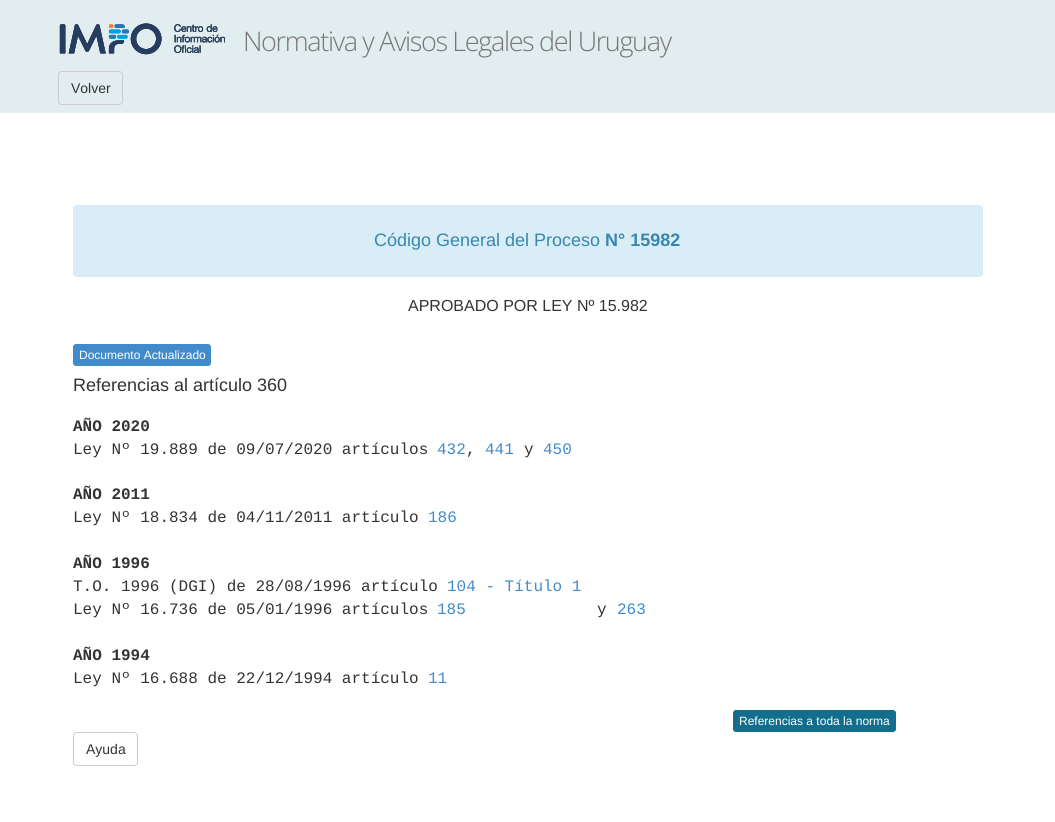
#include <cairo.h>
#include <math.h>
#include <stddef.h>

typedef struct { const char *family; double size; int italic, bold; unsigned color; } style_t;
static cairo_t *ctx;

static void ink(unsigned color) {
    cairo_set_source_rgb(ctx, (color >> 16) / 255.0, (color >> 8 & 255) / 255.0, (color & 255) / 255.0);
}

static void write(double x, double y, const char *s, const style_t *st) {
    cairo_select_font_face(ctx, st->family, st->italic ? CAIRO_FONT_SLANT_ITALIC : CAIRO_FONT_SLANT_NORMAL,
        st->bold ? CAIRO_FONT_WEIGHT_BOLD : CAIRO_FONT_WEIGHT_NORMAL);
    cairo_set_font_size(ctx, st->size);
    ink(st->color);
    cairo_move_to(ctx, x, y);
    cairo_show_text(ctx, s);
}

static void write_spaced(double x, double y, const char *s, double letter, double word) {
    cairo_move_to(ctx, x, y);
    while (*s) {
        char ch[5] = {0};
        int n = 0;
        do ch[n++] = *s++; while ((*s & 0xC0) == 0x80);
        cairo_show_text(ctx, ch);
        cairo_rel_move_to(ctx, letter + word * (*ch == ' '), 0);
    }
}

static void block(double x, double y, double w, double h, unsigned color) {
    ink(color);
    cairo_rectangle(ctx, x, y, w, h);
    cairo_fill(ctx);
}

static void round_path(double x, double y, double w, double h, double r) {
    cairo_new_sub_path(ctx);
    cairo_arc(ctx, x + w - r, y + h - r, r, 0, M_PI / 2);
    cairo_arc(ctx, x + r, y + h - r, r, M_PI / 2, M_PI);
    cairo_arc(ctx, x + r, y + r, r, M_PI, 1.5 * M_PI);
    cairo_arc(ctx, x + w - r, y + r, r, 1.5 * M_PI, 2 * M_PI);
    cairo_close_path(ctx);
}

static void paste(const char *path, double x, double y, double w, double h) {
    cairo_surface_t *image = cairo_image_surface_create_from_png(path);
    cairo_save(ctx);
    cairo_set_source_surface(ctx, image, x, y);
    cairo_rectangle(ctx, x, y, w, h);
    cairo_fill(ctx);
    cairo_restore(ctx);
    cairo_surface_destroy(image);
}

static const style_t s1 = {"Liberation Sans", 14, 0, 0, 0x333333};
static const style_t s2 = {"Liberation Sans", 18, 0, 0, 0x3a87ad};
static const style_t s3 = {"Liberation Sans", 18, 0, 1, 0x3a87ad};
static const style_t s4 = {"Liberation Sans", 16, 0, 0, 0x333333};
static const style_t s5 = {"Liberation Sans", 12, 0, 0, 0xffffff};
static const style_t s6 = {"Liberation Sans", 18, 0, 0, 0x333333};
static const style_t s7 = {"Liberation Mono", 16, 0, 1, 0x333333};
static const style_t s8 = {"Liberation Mono", 16, 0, 0, 0x333333};
static const style_t s9 = {"Liberation Mono", 16, 0, 0, 0x428bca};

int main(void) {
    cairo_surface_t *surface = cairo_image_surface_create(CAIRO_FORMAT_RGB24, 1055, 822);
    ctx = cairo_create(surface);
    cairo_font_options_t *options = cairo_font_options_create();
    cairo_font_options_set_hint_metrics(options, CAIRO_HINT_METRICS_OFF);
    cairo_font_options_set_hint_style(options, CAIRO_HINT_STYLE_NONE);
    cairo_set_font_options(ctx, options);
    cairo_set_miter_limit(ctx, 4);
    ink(0xffffff);
    cairo_paint(ctx);
    block(0, 0, 1055, 113, 0xe2edf0);
    paste("pic1.png", 59, 23, 166, 32);
    paste("pic2.png", 59, 23, 166, 32);
    cairo_select_font_face(ctx, "Open Sans Light", CAIRO_FONT_SLANT_NORMAL, CAIRO_FONT_WEIGHT_NORMAL);
    cairo_set_font_size(ctx, 27);
    ink(0x777777);
    write_spaced(243, 51, "Normativa y Avisos Legales del Uruguay", -1.35, 0);
    round_path(58.5, 71.5, 64, 33, 3.5);
    ink(0xcccccc);
    cairo_set_line_width(ctx, 1);
    cairo_stroke(ctx);
    write(71, 93, "Volver", &s1);
    ink(0xd9edf7);
    round_path(73, 205, 910, 72, 4);
    cairo_fill(ctx);
    write(374, 246, "Código General del Proceso", &s2);
    write(605, 246, "N° 15982", &s3);
    write(408, 311, "APROBADO POR LEY Nº 15.982", &s4);
    ink(0x428bca);
    round_path(73, 344, 138, 22, 3);
    cairo_fill(ctx);
    write(79, 359, "Documento Actualizado", &s5);
    write(73, 391, "Referencias al artículo 360", &s6);
    write(73, 431, "AÑO 2020", &s7);
    write(73, 454, "Ley Nº 19.889 de 09/07/2020 artículos", &s8);
    write(437, 454, "432", &s9);
    write(466, 454, ",", &s8);
    write(485, 454, "441", &s9);
    write(524, 454, "y", &s8);
    write(543, 454, "450", &s9);
    write(73, 499, "AÑO 2011", &s7);
    write(73, 522, "Ley Nº 18.834 de 04/11/2011 artículo", &s8);
    write(428, 522, "186", &s9);
    write(73, 568, "AÑO 1996", &s7);
    write(73, 591, "T.O. 1996 (DGI) de 28/08/1996 artículo", &s8);
    write(447, 591, "104 - Título 1", &s9);
    write(73, 614, "Ley Nº 16.736 de 05/01/1996 artículos", &s8);
    write(437, 614, "185", &s9);
    write(597, 614, "y", &s8);
    write(617, 614, "263", &s9);
    write(73, 660, "AÑO 1994", &s7);
    write(73, 683, "Ley Nº 16.688 de 22/12/1994 artículo", &s8);
    write(428, 683, "11", &s9);
    ink(0x136d8d);
    round_path(733.5, 710.5, 162, 21, 2.5);
    cairo_fill_preserve(ctx);
    cairo_stroke(ctx);
    write(739, 725, "Referencias a toda la norma", &s5);
    round_path(73.5, 732.5, 64, 33, 3.5);
    ink(0xcccccc);
    cairo_stroke(ctx);
    write(86, 754, "Ayuda", &s1);
    cairo_surface_write_to_png(surface, "screenshot.png");
    cairo_font_options_destroy(options);
    cairo_destroy(ctx);
    cairo_surface_destroy(surface);
    return 0;
}
